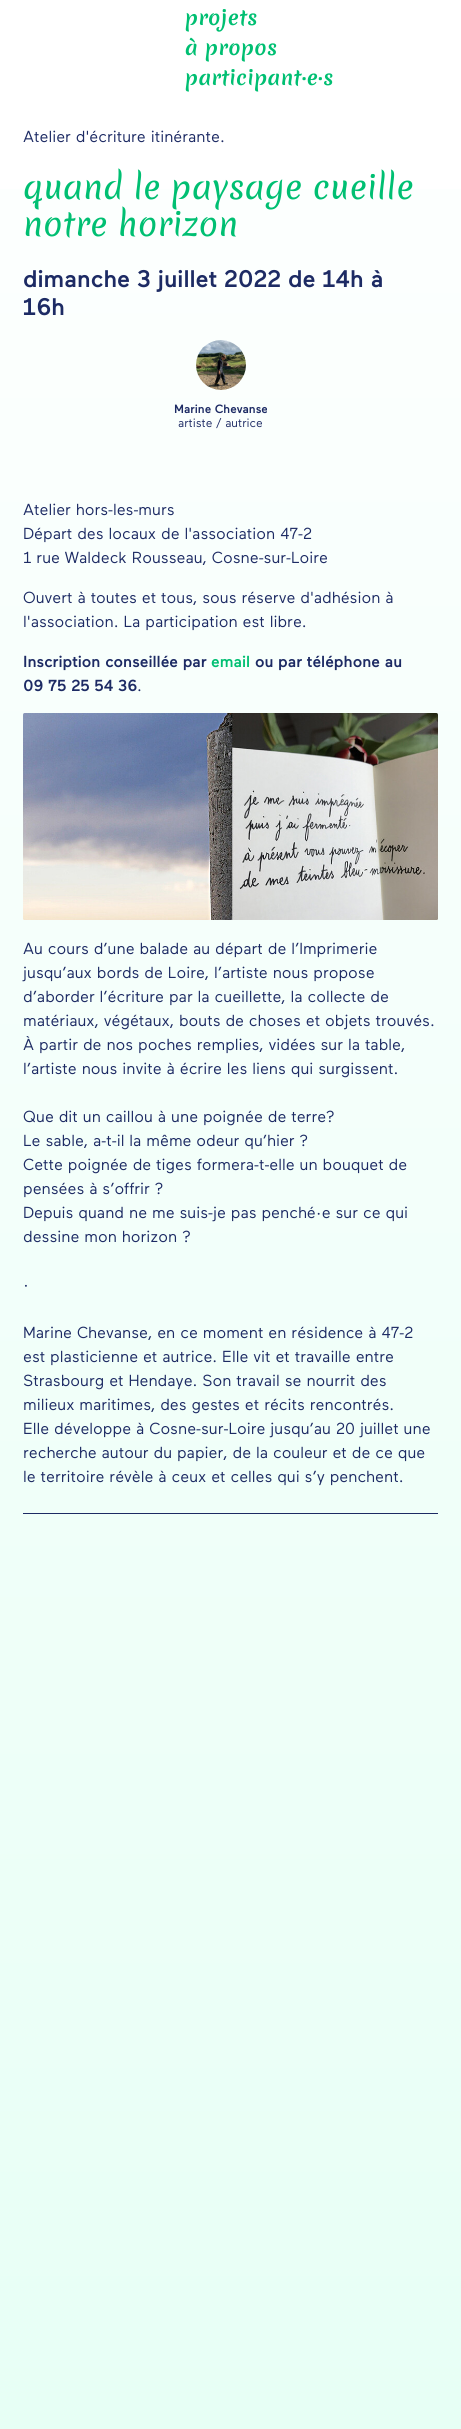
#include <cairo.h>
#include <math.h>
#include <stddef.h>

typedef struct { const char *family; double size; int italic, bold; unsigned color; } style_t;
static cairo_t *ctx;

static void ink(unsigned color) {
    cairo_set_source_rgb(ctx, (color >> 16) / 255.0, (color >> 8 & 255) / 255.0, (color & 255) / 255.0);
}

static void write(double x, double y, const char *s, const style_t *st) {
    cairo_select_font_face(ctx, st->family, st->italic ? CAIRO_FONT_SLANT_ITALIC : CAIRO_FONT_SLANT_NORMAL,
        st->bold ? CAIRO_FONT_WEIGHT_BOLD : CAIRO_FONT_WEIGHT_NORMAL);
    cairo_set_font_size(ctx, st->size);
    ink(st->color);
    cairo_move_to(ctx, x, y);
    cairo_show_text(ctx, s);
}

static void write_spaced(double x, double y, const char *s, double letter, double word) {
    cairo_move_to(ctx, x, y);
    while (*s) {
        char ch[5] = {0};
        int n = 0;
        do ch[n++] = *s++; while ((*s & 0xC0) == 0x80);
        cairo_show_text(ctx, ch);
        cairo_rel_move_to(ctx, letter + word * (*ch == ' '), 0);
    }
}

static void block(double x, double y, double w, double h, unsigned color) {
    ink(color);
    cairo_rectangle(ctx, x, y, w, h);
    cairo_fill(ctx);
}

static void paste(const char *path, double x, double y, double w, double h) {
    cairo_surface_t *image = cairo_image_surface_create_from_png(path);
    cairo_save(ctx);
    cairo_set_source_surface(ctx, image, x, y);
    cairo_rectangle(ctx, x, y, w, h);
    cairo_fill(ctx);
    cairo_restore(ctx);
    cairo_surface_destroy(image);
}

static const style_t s1 = {"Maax", 16, 0, 0, 0x1d2b64};
static const style_t s2 = {"Merienda", 32, 0, 0, 0x00bf72};
static const style_t s3 = {"Maax Medium", 24, 0, 0, 0x1d2b64};
static const style_t s4 = {"Maax Medium", 12, 0, 0, 0x1d2b64};
static const style_t s5 = {"Maax", 12, 0, 0, 0x1d2b64};
static const style_t s6 = {"Maax Medium", 16, 0, 0, 0x1d2b64};
static const style_t s7 = {"Maax Medium", 16, 0, 0, 0x00bf72};

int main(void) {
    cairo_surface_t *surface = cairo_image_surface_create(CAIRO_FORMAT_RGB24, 461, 2429);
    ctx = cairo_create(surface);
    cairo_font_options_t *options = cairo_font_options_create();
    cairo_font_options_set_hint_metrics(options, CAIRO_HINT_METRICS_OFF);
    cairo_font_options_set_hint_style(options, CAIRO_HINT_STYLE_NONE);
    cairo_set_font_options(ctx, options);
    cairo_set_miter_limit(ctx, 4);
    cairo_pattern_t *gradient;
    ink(0xffffff);
    cairo_paint(ctx);
    gradient = cairo_pattern_create_linear(230, -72, 231, 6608);
    cairo_pattern_add_color_stop_rgba(gradient, 0, 1, 1, 1, 1);
    cairo_pattern_add_color_stop_rgba(gradient, 1, 0.749, 1, 0.898, 1);
    cairo_set_source(ctx, gradient);
    cairo_pattern_destroy(gradient);
    cairo_rectangle(ctx, 0, 189, 461, 2240);
    cairo_fill(ctx);
    cairo_select_font_face(ctx, "Merienda", CAIRO_FONT_SLANT_NORMAL, CAIRO_FONT_WEIGHT_BOLD);
    cairo_set_font_size(ctx, 20);
    ink(0x00bf72);
    write_spaced(185, 25, "projets", 0.4, 0);
    write_spaced(185, 55, "à propos", 0.4, 0);
    write_spaced(185, 85, "participant·e·s", 0.4, 0);
    write(23, 142, "Atelier d'écriture itinérante.", &s1);
    write(23, 199, "quand le paysage cueille", &s2);
    write(23, 236, "notre horizon", &s2);
    write(23, 287, "dimanche 3 juillet 2022 de 14h à", &s3);
    write(23, 315, "16h", &s3);
    paste("pic1.png", 196, 340, 50, 50);
    write(174, 413, "Marine Chevanse", &s4);
    write(178, 427, "artiste / autrice", &s5);
    write(23, 515, "Atelier hors-les-murs", &s1);
    write(23, 539, "Départ des locaux de l'association 47-2", &s1);
    write(23, 563, "1 rue Waldeck Rousseau, Cosne-sur-Loire", &s1);
    write(23, 603, "Ouvert à toutes et tous, sous réserve d'adhésion à", &s1);
    write(23, 627, "l'association. La participation est libre.", &s1);
    write(23, 667, "Inscription conseillée par", &s6);
    write(211, 667, "email", &s7);
    write(255, 667, "ou par téléphone au", &s6);
    write(23, 691, "09 75 25 54 36", &s6);
    write(137, 691, ".", &s1);
    paste("pic2.png", 23, 713, 415, 207);
    write(23, 954, "Au cours d’une balade au départ de l’Imprimerie", &s1);
    write(23, 978, "jusqu’aux bords de Loire, l’artiste nous propose", &s1);
    write(23, 1002, "d’aborder l’écriture par la cueillette, la collecte de", &s1);
    write(23, 1026, "matériaux, végétaux, bouts de choses et objets trouvés.", &s1);
    write(23, 1050, "À partir de nos poches remplies, vidées sur la table,", &s1);
    write(23, 1074, "l’artiste nous invite à écrire les liens qui surgissent.", &s1);
    write(23, 1122, "Que dit un caillou à une poignée de terre?", &s1);
    write(23, 1146, "Le sable, a-t-il la même odeur qu’hier ?", &s1);
    write(23, 1170, "Cette poignée de tiges formera-t-elle un bouquet de", &s1);
    write(23, 1194, "pensées à s’offrir ?", &s1);
    write(23, 1218, "Depuis quand ne me suis-je pas penché·e sur ce qui", &s1);
    write(23, 1242, "dessine mon horizon ?", &s1);
    write(23, 1290, "·", &s1);
    write(23, 1338, "Marine Chevanse, en ce moment en résidence à 47-2", &s1);
    write(23, 1362, "est plasticienne et autrice. Elle vit et travaille entre", &s1);
    write(23, 1386, "Strasbourg et Hendaye. Son travail se nourrit des", &s1);
    write(23, 1410, "milieux maritimes, des gestes et récits rencontrés.", &s1);
    write(23, 1434, "Elle développe à Cosne-sur-Loire jusqu’au 20 juillet une", &s1);
    write(23, 1458, "recherche autour du papier, de la couleur et de ce que", &s1);
    write(23, 1482, "le territoire révèle à ceux et celles qui s’y penchent.", &s1);
    block(23, 1513, 415, 1, 0x1d2b64);
    cairo_surface_write_to_png(surface, "screenshot.png");
    cairo_font_options_destroy(options);
    cairo_destroy(ctx);
    cairo_surface_destroy(surface);
    return 0;
}
